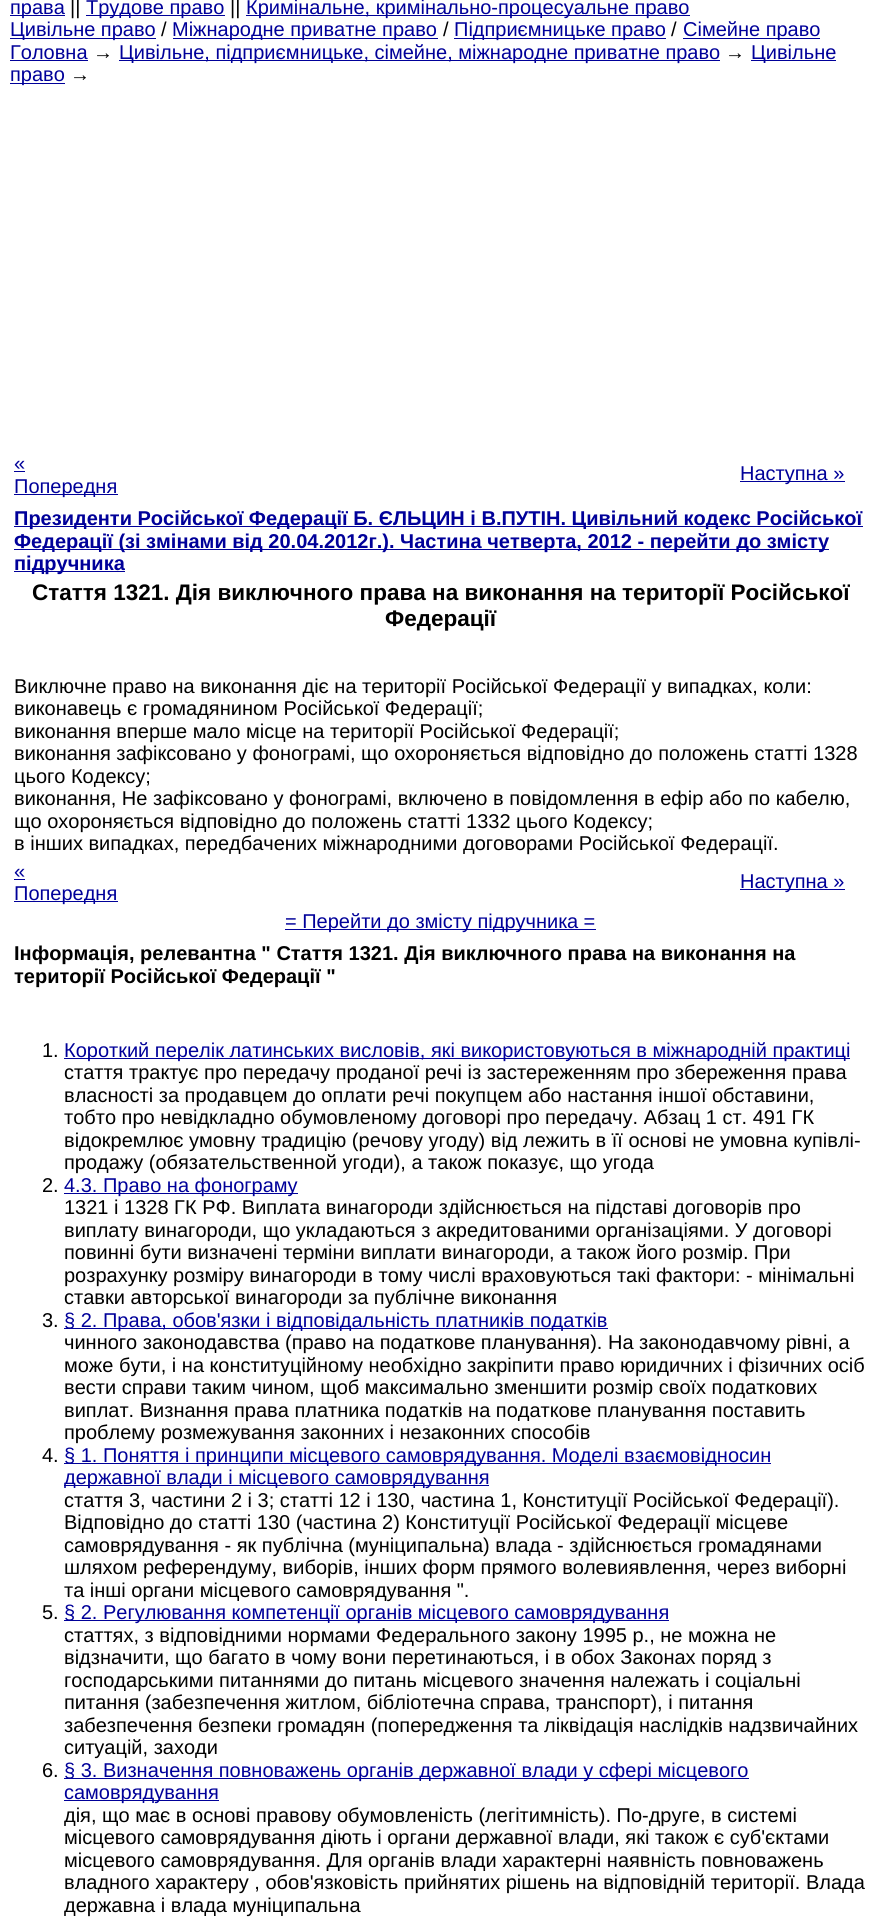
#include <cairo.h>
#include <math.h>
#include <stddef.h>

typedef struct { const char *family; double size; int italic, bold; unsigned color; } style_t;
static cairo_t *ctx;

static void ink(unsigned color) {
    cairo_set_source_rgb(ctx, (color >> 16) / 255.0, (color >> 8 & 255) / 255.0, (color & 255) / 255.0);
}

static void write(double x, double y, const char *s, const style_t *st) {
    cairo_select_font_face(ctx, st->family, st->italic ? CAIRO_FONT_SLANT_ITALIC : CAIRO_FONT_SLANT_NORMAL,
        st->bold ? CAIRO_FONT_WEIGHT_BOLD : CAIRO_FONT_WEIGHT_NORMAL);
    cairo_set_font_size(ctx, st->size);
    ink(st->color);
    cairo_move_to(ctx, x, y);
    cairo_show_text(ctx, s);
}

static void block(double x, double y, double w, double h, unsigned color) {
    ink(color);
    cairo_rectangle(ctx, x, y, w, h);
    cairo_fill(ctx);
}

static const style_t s1 = {"Liberation Sans", 20, 0, 0, 0x000099};
static const style_t s2 = {"Liberation Sans", 20, 0, 0, 0x000000};
static const style_t s3 = {"Liberation Sans", 20, 0, 1, 0x000099};
static const style_t s4 = {"Liberation Sans", 22.5, 0, 1, 0x000000};
static const style_t s5 = {"Liberation Sans", 20, 0, 1, 0x000000};

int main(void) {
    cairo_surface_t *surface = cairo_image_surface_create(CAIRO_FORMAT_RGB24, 881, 1925);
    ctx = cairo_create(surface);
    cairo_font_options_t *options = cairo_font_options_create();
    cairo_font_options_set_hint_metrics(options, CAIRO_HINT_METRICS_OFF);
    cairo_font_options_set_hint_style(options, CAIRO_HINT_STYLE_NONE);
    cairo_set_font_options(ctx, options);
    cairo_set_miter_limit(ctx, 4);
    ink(0xffffff);
    cairo_paint(ctx);
    block(10, 15, 55, 1, 0x000099);
    write(10, 14, "права", &s1);
    write(70, 14, "||", &s2);
    block(86, 15, 139, 1, 0x000099);
    write(86, 14, "Трудове право", &s1);
    write(230, 14, "||", &s2);
    block(246, 15, 444, 1, 0x000099);
    write(246, 14, "Кримінальне, кримінально-процесуальне право", &s1);
    block(10, 38, 146, 1, 0x000099);
    write(10, 36, "Цивільне право", &s1);
    write(161, 36, "/", &s2);
    block(173, 38, 265, 1, 0x000099);
    write(172, 36, "Міжнародне приватне право", &s1);
    write(443, 36, "/", &s2);
    block(454, 38, 212, 1, 0x000099);
    write(454, 36, "Підприємницьке право", &s1);
    write(671, 36, "/", &s2);
    block(683, 38, 137, 1, 0x000099);
    write(683, 36, "Сімейне право", &s1);
    write(10, 59, "Головна", &s1);
    block(10, 60, 78, 1, 0x000099);
    write(93, 59, "→", &s2);
    block(119, 60, 601, 1, 0x000099);
    write(119, 59, "Цивільне, підприємницьке, сімейне, міжнародне приватне право", &s1);
    write(725, 59, "→", &s2);
    block(751, 60, 85, 1, 0x000099);
    write(751, 59, "Цивільне", &s1);
    block(10, 83, 55, 1, 0x000099);
    write(10, 81, "право", &s1);
    write(70, 81, "→", &s2);
    write(14, 470, "«", &s1);
    block(14, 471, 11, 1, 0x000099);
    block(14, 494, 104, 1, 0x000099);
    write(14, 493, "Попередня", &s1);
    block(740, 481, 105, 1, 0x000099);
    write(740, 480, "Наступна »", &s1);
    block(14, 526, 849, 1, 0x000099);
    write(14, 525, "Президенти Російської Федерації Б. ЄЛЬЦИН і В.ПУТІН. Цивільний кодекс Російської", &s3);
    block(14, 549, 815, 1, 0x000099);
    write(14, 548, "Федерації (зі змінами від 20.04.2012г.). Частина четверта, 2012 - перейти до змісту", &s3);
    block(14, 571, 111, 1, 0x000099);
    write(14, 570, "підручника", &s3);
    write(32, 600, "Стаття 1321. Дія виключного права на виконання на території Російської", &s4);
    write(385, 626, "Федерації", &s4);
    write(14, 693, "Виключне право на виконання діє на території Російської Федерації у випадках, коли:", &s2);
    write(14, 715, "виконавець є громадянином Російської Федерації;", &s2);
    write(14, 738, "виконання вперше мало місце на території Російської Федерації;", &s2);
    write(14, 760, "виконання зафіксовано у фонограмі, що охороняється відповідно до положень статті 1328", &s2);
    write(14, 783, "цього Кодексу;", &s2);
    write(14, 805, "виконання, Не зафіксовано у фонограмі, включено в повідомлення в ефір або по кабелю,", &s2);
    write(14, 828, "що охороняється відповідно до положень статті 1332 цього Кодексу;", &s2);
    write(14, 850, "в інших випадках, передбачених міжнародними договорами Російської Федерації.", &s2);
    write(14, 878, "«", &s1);
    block(14, 879, 11, 1, 0x000099);
    block(14, 901, 104, 1, 0x000099);
    write(14, 900, "Попередня", &s1);
    block(740, 889, 105, 1, 0x000099);
    write(740, 888, "Наступна »", &s1);
    block(285, 929, 311, 1, 0x000099);
    write(285, 928, "= Перейти до змісту підручника =", &s1);
    write(14, 960, "Інформація, релевантна \" Стаття 1321. Дія виключного права на виконання на", &s5);
    write(14, 983, "території Російської Федерації \"", &s5);
    write(42, 1057, "1.", &s2);
    block(64, 1058, 786, 1, 0x000099);
    write(64, 1057, "Короткий перелік латинських висловів, які використовуються в міжнародній практиці", &s1);
    write(64, 1079, "стаття трактує про передачу проданої речі із застереженням про збереження права", &s2);
    write(64, 1102, "власності за продавцем до оплати речі покупцем або настання іншої обставини,", &s2);
    write(64, 1124, "тобто про невідкладно обумовленому договорі про передачу. Абзац 1 ст. 491 ГК", &s2);
    write(64, 1147, "відокремлює умовну традицію (речову угоду) від лежить в її основі не умовна купівлі-", &s2);
    write(64, 1169, "продажу (обязательственной угоди), а також показує, що угода", &s2);
    write(42, 1192, "2.", &s2);
    block(64, 1193, 234, 1, 0x000099);
    write(64, 1192, "4.3. Право на фонограму", &s1);
    write(64, 1214, "1321 і 1328 ГК РФ. Виплата винагороди здійснюється на підставі договорів про", &s2);
    write(64, 1237, "виплату винагороди, що укладаються з акредитованими організаціями. У договорі", &s2);
    write(64, 1259, "повинні бути визначені терміни виплати винагороди, а також його розмір. При", &s2);
    write(64, 1282, "розрахунку розміру винагороди в тому числі враховуються такі фактори: - мінімальні", &s2);
    write(64, 1304, "ставки авторської винагороди за публічне виконання", &s2);
    write(42, 1327, "3.", &s2);
    block(64, 1328, 544, 1, 0x000099);
    write(64, 1327, "§ 2. Права, обов'язки і відповідальність платників податків", &s1);
    write(64, 1349, "чинного законодавства (право на податкове планування). На законодавчому рівні, а", &s2);
    write(64, 1372, "може бути, і на конституційному необхідно закріпити право юридичних і фізичних осіб", &s2);
    write(64, 1394, "вести справи таким чином, щоб максимально зменшити розмір своїх податкових", &s2);
    write(64, 1417, "виплат. Визнання права платника податків на податкове планування поставить", &s2);
    write(64, 1439, "проблему розмежування законних і незаконних способів", &s2);
    write(42, 1462, "4.", &s2);
    block(64, 1463, 707, 1, 0x000099);
    write(64, 1462, "§ 1. Поняття і принципи місцевого самоврядування. Моделі взаємовідносин", &s1);
    block(64, 1485, 425, 1, 0x000099);
    write(64, 1484, "державної влади і місцевого самоврядування", &s1);
    write(64, 1507, "стаття 3, частини 2 і 3; статті 12 і 130, частина 1, Конституції Російської Федерації).", &s2);
    write(64, 1529, "Відповідно до статті 130 (частина 2) Конституції Російської Федерації місцеве", &s2);
    write(64, 1552, "самоврядування - як публічна (муніципальна) влада - здійснюється громадянами", &s2);
    write(64, 1574, "шляхом референдуму, виборів, інших форм прямого волевиявлення, через виборні", &s2);
    write(64, 1597, "та інші органи місцевого самоврядування \".", &s2);
    write(42, 1619, "5.", &s2);
    block(64, 1620, 605, 1, 0x000099);
    write(64, 1619, "§ 2. Регулювання компетенції органів місцевого самоврядування", &s1);
    write(64, 1642, "статтях, з відповідними нормами Федерального закону 1995 р., не можна не", &s2);
    write(64, 1664, "відзначити, що багато в чому вони перетинаються, і в обох Законах поряд з", &s2);
    write(64, 1687, "господарськими питаннями до питань місцевого значення належать і соціальні", &s2);
    write(64, 1709, "питання (забезпечення житлом, бібліотечна справа, транспорт), і питання", &s2);
    write(64, 1732, "забезпечення безпеки громадян (попередження та ліквідація наслідків надзвичайних", &s2);
    write(64, 1754, "ситуацій, заходи", &s2);
    write(42, 1777, "6.", &s2);
    block(64, 1778, 685, 1, 0x000099);
    write(64, 1777, "§ 3. Визначення повноважень органів державної влади у сфері місцевого", &s1);
    block(64, 1800, 155, 1, 0x000099);
    write(64, 1799, "самоврядування", &s1);
    write(64, 1822, "дія, що має в основі правову обумовленість (легітимність). По-друге, в системі", &s2);
    write(64, 1844, "місцевого самоврядування діють і органи державної влади, які також є суб'єктами", &s2);
    write(64, 1867, "місцевого самоврядування. Для органів влади характерні наявність повноважень", &s2);
    write(64, 1889, "владного характеру , обов'язковість прийнятих рішень на відповідній території. Влада", &s2);
    write(64, 1912, "державна і влада муніципальна", &s2);
    cairo_surface_write_to_png(surface, "screenshot.png");
    cairo_font_options_destroy(options);
    cairo_destroy(ctx);
    cairo_surface_destroy(surface);
    return 0;
}
